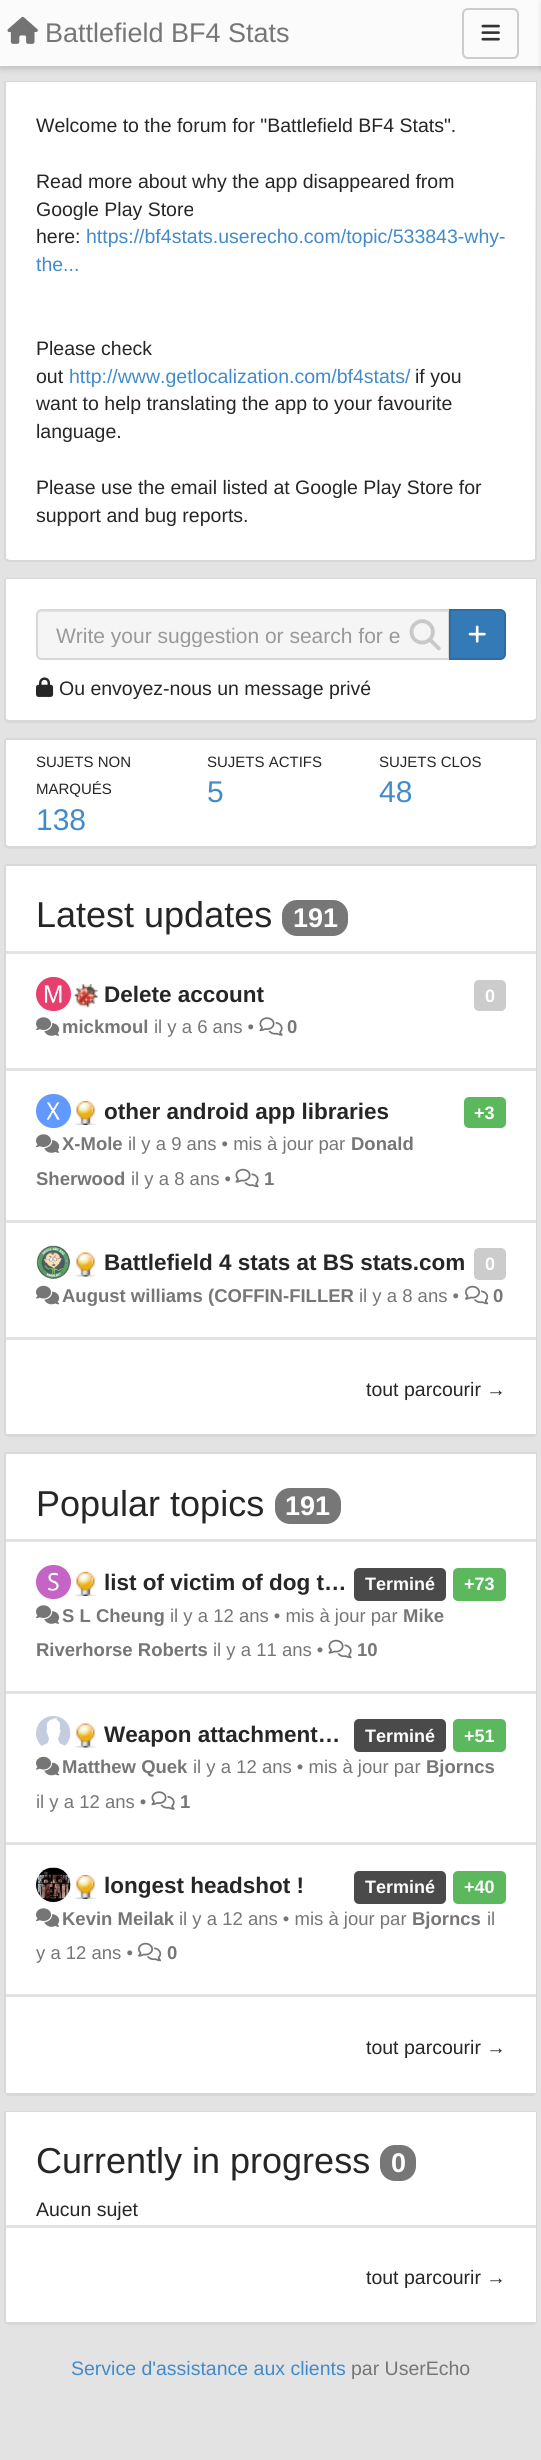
#include <cairo.h>
#include <math.h>
#include <stddef.h>

typedef struct { const char *family; double size; int italic, bold; unsigned color; } style_t;
static cairo_t *ctx;

static void ink(unsigned color) {
    cairo_set_source_rgb(ctx, (color >> 16) / 255.0, (color >> 8 & 255) / 255.0, (color & 255) / 255.0);
}

static void write(double x, double y, const char *s, const style_t *st) {
    cairo_select_font_face(ctx, st->family, st->italic ? CAIRO_FONT_SLANT_ITALIC : CAIRO_FONT_SLANT_NORMAL,
        st->bold ? CAIRO_FONT_WEIGHT_BOLD : CAIRO_FONT_WEIGHT_NORMAL);
    cairo_set_font_size(ctx, st->size);
    ink(st->color);
    cairo_move_to(ctx, x, y);
    cairo_show_text(ctx, s);
}

static void block(double x, double y, double w, double h, unsigned color) {
    ink(color);
    cairo_rectangle(ctx, x, y, w, h);
    cairo_fill(ctx);
}

static void round_path(double x, double y, double w, double h, double r) {
    cairo_new_sub_path(ctx);
    cairo_arc(ctx, x + w - r, y + h - r, r, 0, M_PI / 2);
    cairo_arc(ctx, x + r, y + h - r, r, M_PI / 2, M_PI);
    cairo_arc(ctx, x + r, y + r, r, M_PI, 1.5 * M_PI);
    cairo_arc(ctx, x + w - r, y + r, r, 1.5 * M_PI, 2 * M_PI);
    cairo_close_path(ctx);
}

static void blur_box(double x, double y, double w, double h, double r, double blur, double alpha) {
    cairo_push_group_with_content(ctx, CAIRO_CONTENT_ALPHA);
    cairo_set_operator(ctx, CAIRO_OPERATOR_SOURCE);
    for (int i = 15; i >= -15 && fmin(w, h) + blur * i / 3 > 0; i -= 2) {
        double e = blur * i / 6;
        cairo_set_source_rgba(ctx, 0, 0, 0, alpha * erfc((i - 1) / 8.5) / 2);
        round_path(x - e, y - e, w + 2 * e, h + 2 * e, fmax(0, fmin(r + e + blur * .6, fmin(w, h) / 2 + e)));
        cairo_fill(ctx);
    }
    cairo_pattern_t *soft = cairo_pop_group(ctx);
    cairo_mask(ctx, soft);
    cairo_pattern_destroy(soft);
}

static void paste(const char *path, double x, double y, double w, double h) {
    cairo_surface_t *image = cairo_image_surface_create_from_png(path);
    cairo_save(ctx);
    cairo_set_source_surface(ctx, image, x, y);
    cairo_rectangle(ctx, x, y, w, h);
    cairo_fill(ctx);
    cairo_restore(ctx);
    cairo_surface_destroy(image);
}

static const style_t s1 = {"Liberation Sans", 27, 0, 0, 0x767676};
static const style_t s2 = {"Liberation Sans", 19.5, 0, 0, 0x262626};
static const style_t s3 = {"Liberation Sans", 19.5, 0, 0, 0x428bca};
static const style_t s4 = {"Liberation Sans", 21, 0, 0, 0x999999};
static const style_t s5 = {"Liberation Sans", 15, 0, 0, 0x262626};
static const style_t s6 = {"Liberation Sans", 30, 0, 0, 0x428bca};
static const style_t s7 = {"Liberation Sans", 36, 0, 0, 0x262626};
static const style_t s8 = {"Liberation Sans", 27, 0, 1, 0xffffff};
static const style_t s9 = {"Liberation Sans", 22.5, 0, 1, 0x262626};
static const style_t s10 = {"Liberation Sans", 18, 0, 1, 0xffffff};
static const style_t s11 = {"Liberation Sans", 18.5, 0, 1, 0x767676};
static const style_t s12 = {"Liberation Sans", 18.5, 0, 0, 0x767676};
static const style_t s13 = {"Liberation Sans", 19.5, 0, 0, 0x767676};

int main(void) {
    cairo_surface_t *surface = cairo_image_surface_create(CAIRO_FORMAT_RGB24, 541, 2460);
    ctx = cairo_create(surface);
    cairo_font_options_t *options = cairo_font_options_create();
    cairo_font_options_set_hint_metrics(options, CAIRO_HINT_METRICS_OFF);
    cairo_font_options_set_hint_style(options, CAIRO_HINT_STYLE_NONE);
    cairo_set_font_options(ctx, options);
    cairo_set_miter_limit(ctx, 4);
    ink(0xe3e3e3);
    cairo_paint(ctx);
    ink(0x000000);
    blur_box(0, 3, 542, 66, 0, 3, 0.15);
    block(0, 0, 541, 66, 0xfbfbfb);
    paste("pic1.png", 7, 16, 31, 28);
    write(45, 42, "Battlefield BF4 Stats", &s1);
    round_path(463, 9, 55, 49, 5);
    ink(0xcccccc);
    cairo_stroke(ctx);
    paste("pic2.png", 481, 24, 19, 17);
    ink(0x000000);
    blur_box(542, 3, 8, 66, 0, 3, 0.15);
    block(5, 81, 532, 1, 0xd8d8d8);
    ink(0xffffff);
    cairo_new_path(ctx);
    cairo_move_to(ctx, 6, 82);
    cairo_line_to(ctx, 536, 82);
    cairo_line_to(ctx, 535, 559);
    cairo_line_to(ctx, 532, 560);
    cairo_line_to(ctx, 9, 560);
    cairo_curve_to(ctx, 8, 559, 6, 559, 6, 558);
    cairo_close_path(ctx);
    cairo_fill(ctx);
    ink(0xd8d8d8);
    cairo_set_fill_rule(ctx, CAIRO_FILL_RULE_EVEN_ODD);
    cairo_new_path(ctx);
    cairo_move_to(ctx, 4, 82);
    cairo_line_to(ctx, 537, 82);
    cairo_line_to(ctx, 537, 558);
    cairo_curve_to(ctx, 537, 560, 535, 562, 532, 562);
    cairo_line_to(ctx, 9, 562);
    cairo_curve_to(ctx, 7, 562, 4, 560, 4, 558);
    cairo_close_path(ctx);
    cairo_move_to(ctx, 6, 82);
    cairo_line_to(ctx, 536, 82);
    cairo_line_to(ctx, 535, 559);
    cairo_line_to(ctx, 532, 560);
    cairo_line_to(ctx, 9, 560);
    cairo_curve_to(ctx, 8, 559, 6, 559, 6, 558);
    cairo_close_path(ctx);
    cairo_fill(ctx);
    write(36, 132, "Welcome to the forum for \"Battlefield BF4 Stats\".", &s2);
    write(36, 188, "Read more about why the app disappeared from", &s2);
    write(36, 216, "Google Play Store", &s2);
    write(36, 243, "here:", &s2);
    write(86, 243, "https://bf4stats.userecho.com/topic/533843-why-", &s3);
    write(36, 271, "the...", &s3);
    write(36, 355, "Please check", &s2);
    write(36, 383, "out", &s2);
    write(69, 383, "http://www.getlocalization.com/bf4stats/", &s3);
    write(415, 383, "if you", &s2);
    write(36, 410, "want to help translating the app to your favourite", &s2);
    write(36, 438, "language.", &s2);
    write(36, 494, "Please use the email listed at Google Play Store for", &s2);
    write(36, 522, "support and bug reports.", &s2);
    block(5, 578, 532, 1, 0xd8d8d8);
    ink(0xffffff);
    cairo_set_fill_rule(ctx, CAIRO_FILL_RULE_WINDING);
    cairo_new_path(ctx);
    cairo_move_to(ctx, 6, 579);
    cairo_line_to(ctx, 536, 579);
    cairo_line_to(ctx, 536, 718);
    cairo_curve_to(ctx, 536, 719, 534, 720, 532, 720);
    cairo_line_to(ctx, 9, 720);
    cairo_curve_to(ctx, 7, 720, 6, 719, 6, 718);
    cairo_close_path(ctx);
    cairo_fill(ctx);
    ink(0xd8d8d8);
    cairo_set_fill_rule(ctx, CAIRO_FILL_RULE_EVEN_ODD);
    cairo_new_path(ctx);
    cairo_move_to(ctx, 4, 579);
    cairo_line_to(ctx, 537, 579);
    cairo_line_to(ctx, 537, 718);
    cairo_curve_to(ctx, 537, 721, 535, 723, 532, 723);
    cairo_line_to(ctx, 9, 723);
    cairo_curve_to(ctx, 7, 723, 4, 721, 4, 718);
    cairo_close_path(ctx);
    cairo_move_to(ctx, 6, 579);
    cairo_line_to(ctx, 536, 579);
    cairo_line_to(ctx, 536, 718);
    cairo_curve_to(ctx, 536, 719, 534, 720, 532, 720);
    cairo_line_to(ctx, 9, 720);
    cairo_curve_to(ctx, 7, 720, 6, 719, 6, 718);
    cairo_close_path(ctx);
    cairo_fill(ctx);
    ink(0xf5f5f5);
    cairo_new_path(ctx);
    cairo_move_to(ctx, 42, 609);
    cairo_line_to(ctx, 450, 609);
    cairo_line_to(ctx, 450, 660);
    cairo_line_to(ctx, 42, 660);
    cairo_curve_to(ctx, 38.5, 660, 36, 657.5, 36, 654);
    cairo_line_to(ctx, 36, 615);
    cairo_curve_to(ctx, 36, 611.5, 38.5, 609, 42, 609);
    cairo_close_path(ctx);
    cairo_fill(ctx);
    ink(0xe3e3e3);
    cairo_set_fill_rule(ctx, CAIRO_FILL_RULE_WINDING);
    cairo_new_path(ctx);
    cairo_move_to(ctx, 42, 612);
    cairo_line_to(ctx, 448, 612);
    cairo_line_to(ctx, 448, 659);
    cairo_line_to(ctx, 449, 659);
    cairo_line_to(ctx, 449, 611);
    cairo_line_to(ctx, 43, 611);
    cairo_curve_to(ctx, 40, 611, 38, 613, 38, 616);
    cairo_curve_to(ctx, 38, 614, 40, 612, 42, 612);
    cairo_close_path(ctx);
    cairo_fill(ctx);
    cairo_new_path(ctx);
    cairo_move_to(ctx, 42, 610);
    cairo_line_to(ctx, 449, 610);
    cairo_line_to(ctx, 449, 659);
    cairo_line_to(ctx, 42, 659);
    cairo_curve_to(ctx, 39, 659, 37, 657, 37, 654);
    cairo_line_to(ctx, 37, 615);
    cairo_curve_to(ctx, 37, 612, 39, 610, 42, 610);
    cairo_close_path(ctx);
    ink(0xd8d8d8);
    cairo_stroke(ctx);
    cairo_save(ctx);
    cairo_rectangle(ctx, 56, 623, 348, 24);
    cairo_clip(ctx);
    write(56, 643, "Write your suggestion or search for e", &s4);
    cairo_restore(ctx);
    paste("pic3.png", 409, 619, 32, 32);
    ink(0x337ab7);
    cairo_new_path(ctx);
    cairo_move_to(ctx, 450, 610);
    cairo_line_to(ctx, 500, 610);
    cairo_curve_to(ctx, 503, 610, 505, 612, 505, 615);
    cairo_line_to(ctx, 505, 654);
    cairo_curve_to(ctx, 505, 657, 503, 659, 500, 659);
    cairo_line_to(ctx, 450, 659);
    cairo_close_path(ctx);
    cairo_fill_preserve(ctx);
    ink(0x2e6da4);
    cairo_stroke(ctx);
    paste("pic4.png", 468, 625, 18, 18);
    paste("pic5.png", 36, 677, 18, 20);
    write(59, 695, "Ou envoyez-nous un message privé", &s2);
    block(5, 738, 532, 2, 0xd8d8d8);
    ink(0xffffff);
    cairo_new_path(ctx);
    cairo_move_to(ctx, 6, 740);
    cairo_line_to(ctx, 536, 740);
    cairo_line_to(ctx, 536, 844);
    cairo_curve_to(ctx, 536, 845, 534, 846, 532, 846);
    cairo_line_to(ctx, 9, 846);
    cairo_curve_to(ctx, 7, 846, 6, 845, 6, 844);
    cairo_close_path(ctx);
    cairo_fill(ctx);
    ink(0xd8d8d8);
    cairo_set_fill_rule(ctx, CAIRO_FILL_RULE_EVEN_ODD);
    cairo_new_path(ctx);
    cairo_move_to(ctx, 4, 740);
    cairo_line_to(ctx, 537, 740);
    cairo_line_to(ctx, 537, 844);
    cairo_curve_to(ctx, 537, 847, 535, 849, 532, 849);
    cairo_line_to(ctx, 9, 849);
    cairo_curve_to(ctx, 7, 849, 4, 847, 4, 844);
    cairo_close_path(ctx);
    cairo_move_to(ctx, 6, 740);
    cairo_line_to(ctx, 536, 740);
    cairo_line_to(ctx, 536, 844);
    cairo_curve_to(ctx, 536, 845, 534, 846, 532, 846);
    cairo_line_to(ctx, 9, 846);
    cairo_curve_to(ctx, 7, 846, 6, 845, 6, 844);
    cairo_close_path(ctx);
    cairo_fill(ctx);
    write(36, 767, "SUJETS NON", &s5);
    write(36, 794, "MARQUÉS", &s5);
    write(36, 830, "138", &s6);
    write(207, 767, "SUJETS ACTIFS", &s5);
    write(207, 802, "5", &s6);
    write(379, 767, "SUJETS CLOS", &s5);
    write(379, 802, "48", &s6);
    block(5, 864, 532, 2, 0xd8d8d8);
    cairo_new_path(ctx);
    cairo_move_to(ctx, 4, 866);
    cairo_line_to(ctx, 537, 866);
    cairo_line_to(ctx, 537, 1432);
    cairo_curve_to(ctx, 537, 1435, 535, 1437, 532, 1437);
    cairo_line_to(ctx, 9, 1437);
    cairo_curve_to(ctx, 7, 1437, 4, 1435, 4, 1432);
    cairo_close_path(ctx);
    cairo_move_to(ctx, 6, 866);
    cairo_line_to(ctx, 536, 866);
    cairo_line_to(ctx, 536, 1432);
    cairo_curve_to(ctx, 536, 1433, 534, 1434, 532, 1434);
    cairo_line_to(ctx, 9, 1434);
    cairo_curve_to(ctx, 7, 1434, 6, 1433, 6, 1432);
    cairo_close_path(ctx);
    cairo_fill(ctx);
    block(6, 866, 530, 85, 0xffffff);
    write(36, 927, "Latest updates", &s7);
    ink(0x777777);
    round_path(282, 900, 66, 36, 15);
    cairo_fill(ctx);
    write(293, 927, "191", &s8);
    block(6, 954, 530, 114, 0xffffff);
    ink(0xe83f6e);
    round_path(36, 977, 35, 34, 17);
    cairo_fill(ctx);
    paste("pic6.png", 44, 985, 18, 18);
    paste("pic7.png", 73, 984, 25, 24);
    write(104, 1002, "Delete account", &s9);
    ink(0xcccccc);
    round_path(474, 980, 32, 31, 5);
    cairo_fill(ctx);
    write(485, 1002, "0", &s10);
    paste("pic8.png", 36, 1017, 24, 19);
    write(62, 1033, "mickmoul", &s11);
    write(154, 1033, "il y a 6 ans •", &s12);
    paste("pic9.png", 259, 1017, 24, 19);
    write(287, 1033, "0", &s11);
    block(6, 1071, 530, 149, 0xffffff);
    ink(0x6199ff);
    round_path(36, 1094, 35, 34, 17);
    cairo_fill(ctx);
    paste("pic10.png", 46, 1102, 14, 18);
    paste("pic11.png", 74, 1101, 22, 24);
    write(104, 1119, "other android app libraries", &s9);
    ink(0x5cb85c);
    round_path(464, 1097, 42, 31, 5);
    cairo_fill(ctx);
    write(474, 1119, "+3", &s10);
    paste("pic8.png", 36, 1134, 24, 19);
    write(62, 1150, "X-Mole", &s11);
    write(128, 1150, "il y a 9 ans • mis à jour par", &s12);
    write(351, 1150, "Donald", &s11);
    write(36, 1185, "Sherwood", &s11);
    write(131, 1185, "il y a 8 ans •", &s12);
    paste("pic12.png", 235, 1168, 24, 20);
    write(264, 1185, "1", &s11);
    block(6, 1223, 530, 114, 0xffffff);
    paste("pic13.png", 36, 1245, 35, 34);
    paste("pic14.png", 74, 1252, 22, 25);
    write(104, 1270, "Battlefield 4 stats at BS stats.com", &s9);
    ink(0xcccccc);
    round_path(474, 1248, 32, 32, 5);
    cairo_fill(ctx);
    write(485, 1270, "0", &s10);
    paste("pic15.png", 36, 1285, 24, 20);
    write(62, 1302, "August williams (COFFIN-FILLER", &s11);
    write(359, 1302, "il y a 8 ans •", &s12);
    paste("pic16.png", 465, 1285, 24, 20);
    write(493, 1302, "0", &s11);
    block(6, 1340, 530, 94, 0xffffff);
    write(366, 1396, "tout parcourir →", &s2);
    block(5, 1452, 532, 2, 0xd8d8d8);
    cairo_new_path(ctx);
    cairo_move_to(ctx, 4, 1454);
    cairo_line_to(ctx, 537, 1454);
    cairo_line_to(ctx, 537, 2091);
    cairo_curve_to(ctx, 537, 2093, 535, 2096, 532, 2096);
    cairo_line_to(ctx, 9, 2096);
    cairo_curve_to(ctx, 7, 2096, 4, 2093, 4, 2091);
    cairo_close_path(ctx);
    cairo_move_to(ctx, 6, 1454);
    cairo_line_to(ctx, 536, 1454);
    cairo_line_to(ctx, 536, 2091);
    cairo_curve_to(ctx, 536, 2092, 534, 2092, 532, 2092);
    cairo_line_to(ctx, 9, 2092);
    cairo_curve_to(ctx, 7, 2092, 6, 2092, 6, 2091);
    cairo_close_path(ctx);
    cairo_fill(ctx);
    block(6, 1454, 530, 85, 0xffffff);
    write(36, 1516, "Popular topics", &s7);
    ink(0x777777);
    round_path(275, 1488, 66, 36, 15);
    cairo_fill(ctx);
    write(285, 1515, "191", &s8);
    block(6, 1542, 530, 149, 0xffffff);
    ink(0xc464c4);
    round_path(36, 1565, 35, 34, 17);
    cairo_fill(ctx);
    paste("pic17.png", 48, 1572, 11, 19);
    paste("pic11.png", 74, 1572, 22, 24);
    write(104, 1590, "list of victim of dog t…", &s9);
    ink(0x4a4a4a);
    round_path(354, 1568, 92, 33, 5);
    cairo_fill(ctx);
    write(365, 1590, "Terminé", &s10);
    ink(0x5cb85c);
    round_path(453, 1568, 53, 33, 5);
    cairo_fill(ctx);
    write(464, 1590, "+73", &s10);
    paste("pic8.png", 36, 1605, 24, 19);
    write(62, 1622, "S L Cheung", &s11);
    write(170, 1622, "il y a 12 ans • mis à jour par", &s12);
    write(403, 1622, "Mike", &s11);
    write(36, 1656, "Riverhorse Roberts", &s11);
    write(213, 1656, "il y a 11 ans •", &s12);
    paste("pic12.png", 328, 1639, 24, 20);
    write(357, 1656, "10", &s11);
    block(6, 1694, 530, 148, 0xffffff);
    paste("pic18.png", 36, 1716, 35, 30);
    paste("pic14.png", 74, 1723, 22, 25);
    write(104, 1742, "Weapon attachment…", &s9);
    ink(0x4a4a4a);
    round_path(354, 1719, 92, 33, 5);
    cairo_fill(ctx);
    write(365, 1742, "Terminé", &s10);
    ink(0x5cb85c);
    round_path(453, 1719, 53, 33, 5);
    cairo_fill(ctx);
    write(464, 1742, "+51", &s10);
    paste("pic15.png", 36, 1756, 24, 20);
    write(62, 1773, "Matthew Quek", &s11);
    write(193, 1773, "il y a 12 ans • mis à jour par", &s12);
    write(426, 1773, "Bjorncs", &s11);
    write(36, 1808, "il y a 12 ans •", &s12);
    paste("pic9.png", 151, 1791, 24, 19);
    write(180, 1808, "1", &s11);
    block(6, 1845, 530, 149, 0xffffff);
    paste("pic19.png", 36, 1867, 35, 35);
    paste("pic11.png", 74, 1875, 22, 24);
    write(104, 1893, "longest headshot !", &s9);
    ink(0x4a4a4a);
    round_path(354, 1871, 92, 33, 5);
    cairo_fill(ctx);
    write(365, 1893, "Terminé", &s10);
    ink(0x5cb85c);
    round_path(453, 1871, 53, 33, 5);
    cairo_fill(ctx);
    write(464, 1893, "+40", &s10);
    paste("pic8.png", 36, 1908, 24, 19);
    write(62, 1925, "Kevin Meilak", &s11);
    write(179, 1925, "il y a 12 ans • mis à jour par", &s12);
    write(412, 1925, "Bjorncs", &s11);
    write(487, 1925, "il", &s12);
    write(36, 1959, "y a 12 ans •", &s12);
    paste("pic16.png", 138, 1942, 24, 20);
    write(167, 1959, "0", &s11);
    block(6, 1997, 530, 96, 0xffffff);
    write(366, 2054, "tout parcourir →", &s2);
    block(5, 2111, 532, 1, 0xd8d8d8);
    cairo_new_path(ctx);
    cairo_move_to(ctx, 4, 2112);
    cairo_line_to(ctx, 537, 2112);
    cairo_line_to(ctx, 537, 2320);
    cairo_curve_to(ctx, 537, 2323, 535, 2325, 532, 2325);
    cairo_line_to(ctx, 9, 2325);
    cairo_curve_to(ctx, 7, 2325, 4, 2323, 4, 2320);
    cairo_close_path(ctx);
    cairo_move_to(ctx, 6, 2112);
    cairo_line_to(ctx, 536, 2112);
    cairo_line_to(ctx, 536, 2320);
    cairo_curve_to(ctx, 536, 2321, 534, 2322, 532, 2322);
    cairo_line_to(ctx, 9, 2322);
    cairo_curve_to(ctx, 7, 2322, 6, 2321, 6, 2320);
    cairo_close_path(ctx);
    cairo_fill(ctx);
    block(6, 2112, 530, 113, 0xffffff);
    write(36, 2173, "Currently in progress", &s7);
    ink(0x777777);
    round_path(380, 2145, 36, 36, 15);
    cairo_fill(ctx);
    write(391, 2172, "0", &s8);
    write(36, 2216, "Aucun sujet", &s2);
    block(6, 2228, 530, 94, 0xffffff);
    write(366, 2284, "tout parcourir →", &s2);
    write(71, 2375, "Service d'assistance aux clients", &s3);
    write(351, 2375, "par UserEcho", &s13);
    cairo_surface_write_to_png(surface, "screenshot.png");
    cairo_font_options_destroy(options);
    cairo_destroy(ctx);
    cairo_surface_destroy(surface);
    return 0;
}
